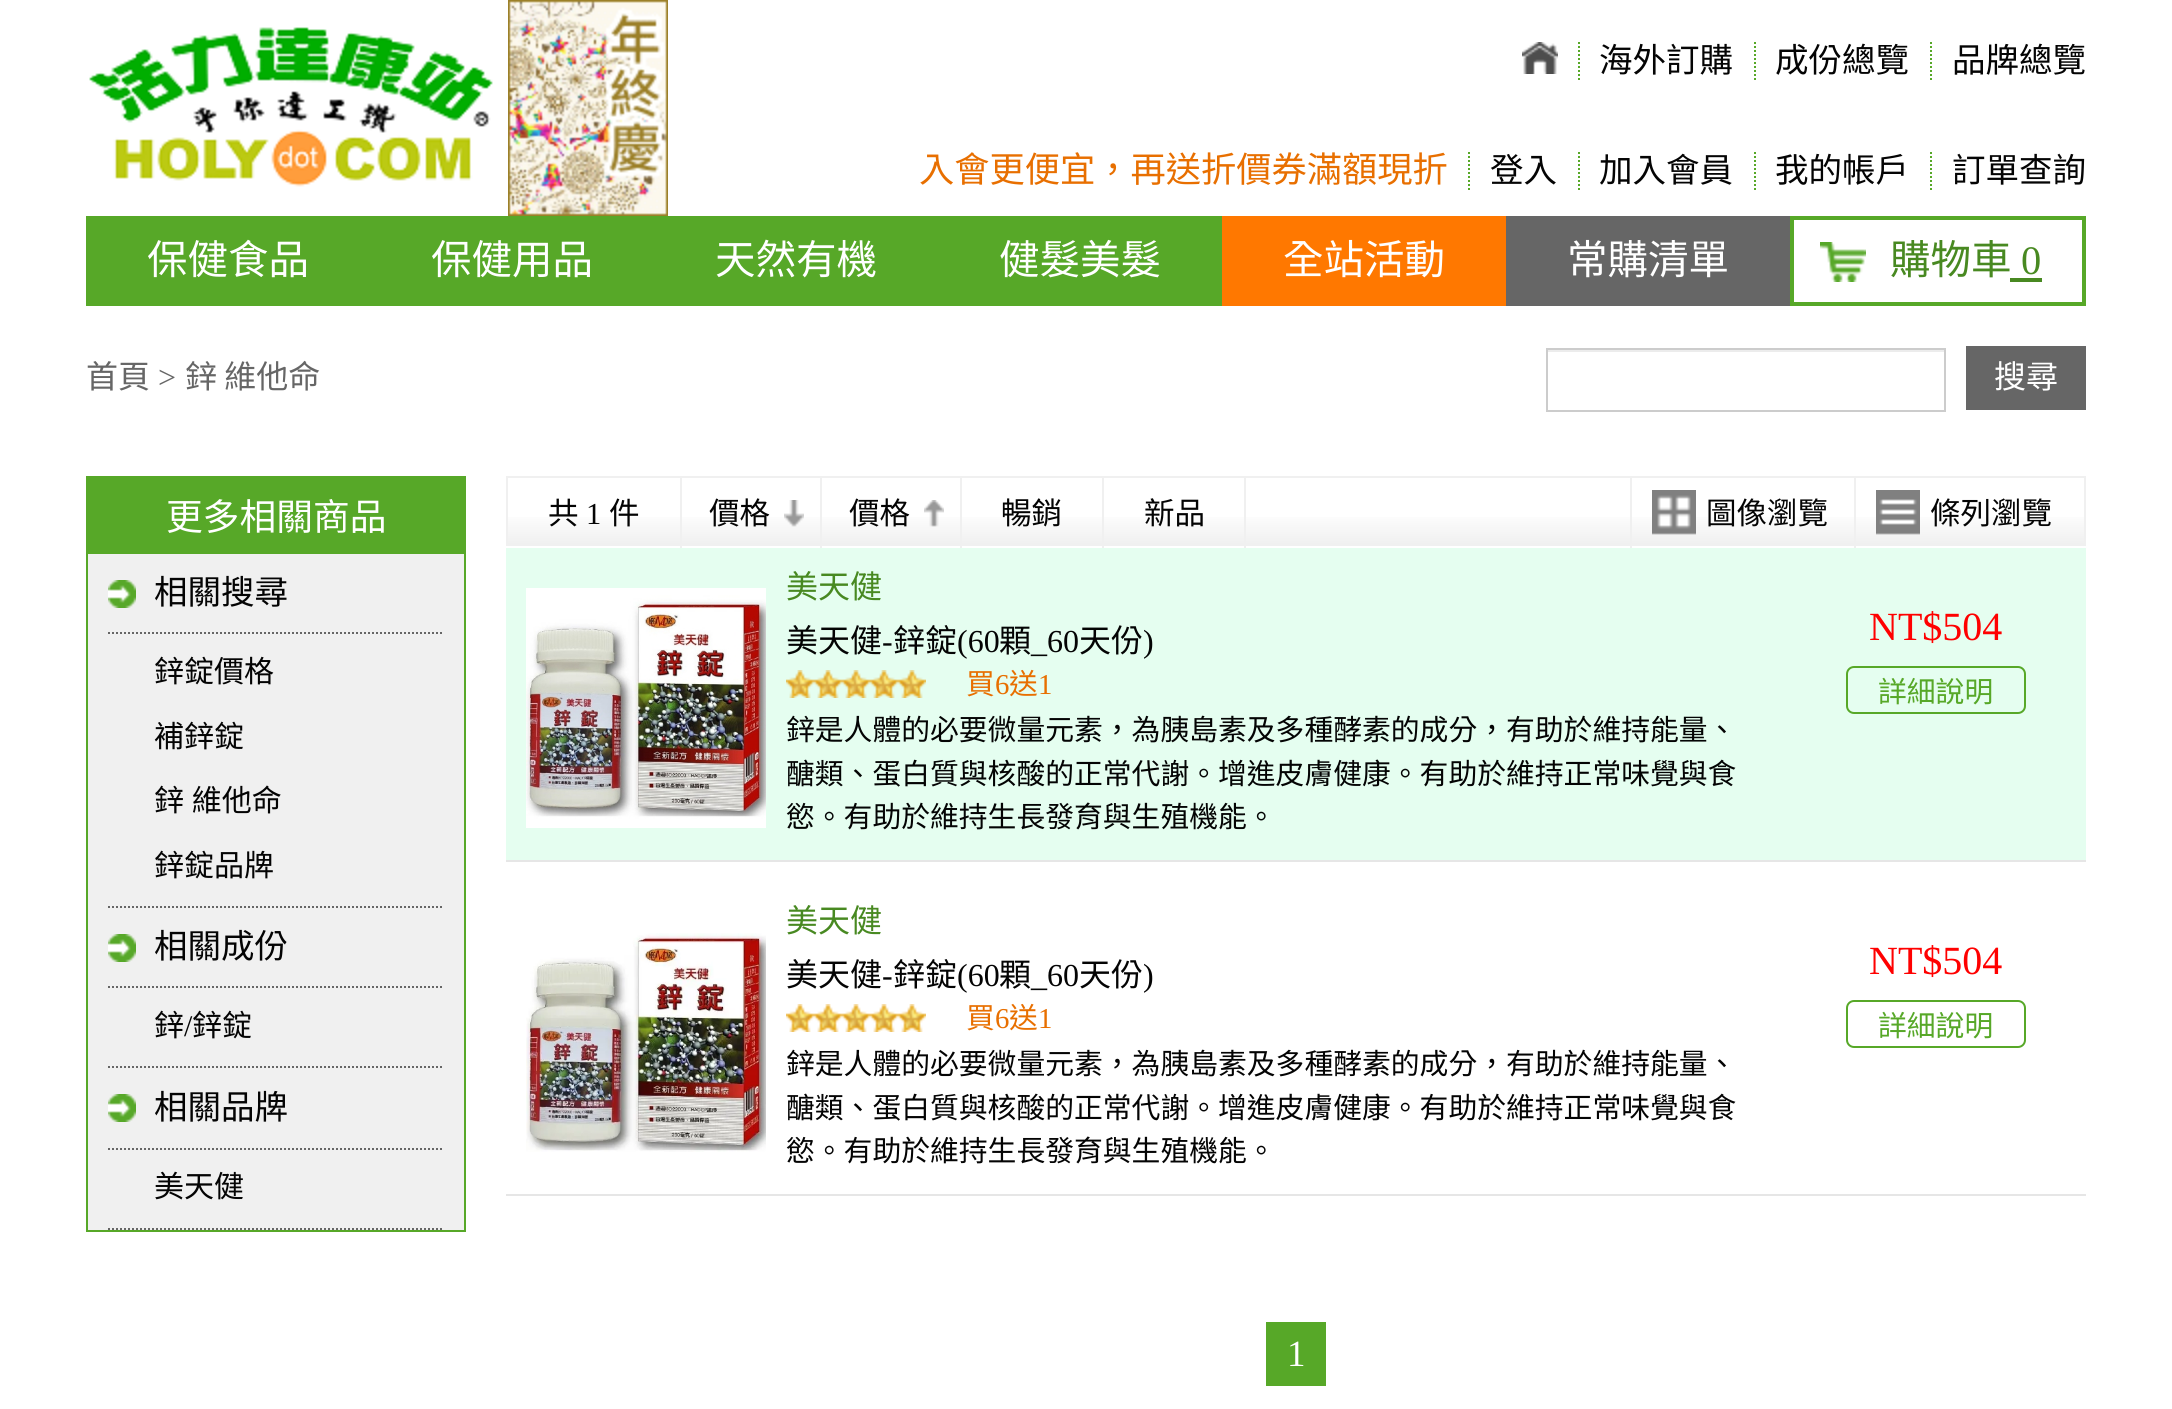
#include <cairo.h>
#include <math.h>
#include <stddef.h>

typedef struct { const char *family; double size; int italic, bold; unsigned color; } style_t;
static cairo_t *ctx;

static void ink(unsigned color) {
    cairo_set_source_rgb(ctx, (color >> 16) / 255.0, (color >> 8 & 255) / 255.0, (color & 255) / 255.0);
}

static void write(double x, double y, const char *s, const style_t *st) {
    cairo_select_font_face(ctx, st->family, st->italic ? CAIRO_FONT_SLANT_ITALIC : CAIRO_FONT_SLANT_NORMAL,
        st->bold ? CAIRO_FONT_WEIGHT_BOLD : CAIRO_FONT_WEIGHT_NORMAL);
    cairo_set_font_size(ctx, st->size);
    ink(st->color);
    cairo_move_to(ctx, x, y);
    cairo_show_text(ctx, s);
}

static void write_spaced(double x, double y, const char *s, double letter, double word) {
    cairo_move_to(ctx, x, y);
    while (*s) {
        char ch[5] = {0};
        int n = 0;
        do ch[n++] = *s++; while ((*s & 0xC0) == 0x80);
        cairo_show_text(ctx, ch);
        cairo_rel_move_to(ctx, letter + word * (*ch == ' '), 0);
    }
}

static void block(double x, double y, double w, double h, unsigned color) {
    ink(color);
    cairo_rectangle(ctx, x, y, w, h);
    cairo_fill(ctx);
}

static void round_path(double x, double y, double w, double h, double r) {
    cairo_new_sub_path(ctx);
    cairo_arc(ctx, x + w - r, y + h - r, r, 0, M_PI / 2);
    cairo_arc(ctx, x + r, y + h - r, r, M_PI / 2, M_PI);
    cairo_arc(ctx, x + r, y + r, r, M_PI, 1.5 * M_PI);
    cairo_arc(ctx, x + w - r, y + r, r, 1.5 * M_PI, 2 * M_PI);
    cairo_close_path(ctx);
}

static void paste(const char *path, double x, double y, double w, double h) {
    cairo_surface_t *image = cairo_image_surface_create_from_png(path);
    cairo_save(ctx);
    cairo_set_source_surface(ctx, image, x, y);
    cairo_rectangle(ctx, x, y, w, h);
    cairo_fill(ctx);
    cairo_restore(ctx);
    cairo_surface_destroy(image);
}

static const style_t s1 = {"Noto Sans CJK TC", 33.5, 0, 0, 0x040404};
static const style_t s2 = {"Noto Sans CJK TC", 35.25, 0, 0, 0xe86f00};
static const style_t s3 = {"Noto Sans CJK TC", 40.5, 0, 0, 0xffffff};
static const style_t s4 = {"Noto Sans CJK TC", 40.5, 0, 0, 0x488921};
static const style_t s5 = {"Liberation Serif", 40.5, 0, 0, 0x488921};
static const style_t s6 = {"Noto Sans CJK TC", 32, 0, 0, 0x666666};
static const style_t s7 = {"Liberation Serif", 32, 0, 0, 0x666666};
static const style_t s8 = {"Noto Sans CJK TC", 32, 0, 0, 0xffffff};
static const style_t s9 = {"Noto Sans CJK TC", 36.75, 0, 0, 0xffffff};
static const style_t s10 = {"Noto Sans CJK TC", 30, 0, 0, 0x040404};
static const style_t s11 = {"Liberation Serif", 30, 0, 0, 0x040404};
static const style_t s12 = {"Noto Sans CJK TC", 30.5, 0, 0, 0x040404};
static const style_t s13 = {"Liberation Serif", 30.5, 0, 0, 0x040404};
static const style_t s14 = {"Noto Sans CJK TC", 32, 0, 0, 0x488921};
static const style_t s15 = {"Noto Sans CJK TC", 32, 0, 0, 0x040404};
static const style_t s16 = {"Liberation Serif", 32, 0, 0, 0x040404};
static const style_t s17 = {"Noto Sans CJK TC", 28.8, 0, 0, 0xe86f00};
static const style_t s18 = {"Liberation Serif", 28.8, 0, 0, 0xe86f00};
static const style_t s19 = {"Noto Sans CJK TC", 28.8, 0, 0, 0x040404};
static const style_t s20 = {"Liberation Serif", 40, 0, 0, 0xff0000};
static const style_t s21 = {"Noto Sans CJK TC", 28.8, 0, 0, 0x57a828};
static const style_t s22 = {"Liberation Serif", 37, 0, 0, 0xffffff};

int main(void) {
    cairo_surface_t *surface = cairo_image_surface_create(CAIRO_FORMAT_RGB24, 2172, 1409);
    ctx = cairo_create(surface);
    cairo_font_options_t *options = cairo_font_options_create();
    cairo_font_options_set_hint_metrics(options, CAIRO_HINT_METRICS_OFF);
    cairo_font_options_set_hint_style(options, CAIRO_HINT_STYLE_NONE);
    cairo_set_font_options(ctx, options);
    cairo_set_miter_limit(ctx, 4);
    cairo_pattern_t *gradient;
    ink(0xffffff);
    cairo_paint(ctx);
    paste("pic1.png", 89, 27, 404, 160);
    paste("pic2.png", 508, 0, 160, 216);
    paste("pic3.png", 1522, 42, 36, 32);
    cairo_new_path(ctx);
    cairo_move_to(ctx, 1579, 42);
    cairo_line_to(ctx, 1579, 80);
    ink(0x57a828);
    cairo_set_dash(ctx, (double[]){2, 2}, 2, 0);
    cairo_stroke(ctx);
    write(1599, 72, "海外訂購", &s1);
    cairo_new_path(ctx);
    cairo_move_to(ctx, 1755, 42);
    cairo_line_to(ctx, 1755, 80);
    ink(0x57a828);
    cairo_stroke(ctx);
    write(1775, 72, "成份總覽", &s1);
    cairo_new_path(ctx);
    cairo_move_to(ctx, 1931, 42);
    cairo_line_to(ctx, 1931, 80);
    ink(0x57a828);
    cairo_stroke(ctx);
    write(1952, 72, "品牌總覽", &s1);
    write(919, 182, "入會更便宜，再送折價券滿額現折", &s2);
    cairo_new_path(ctx);
    cairo_move_to(ctx, 1469, 152);
    cairo_line_to(ctx, 1469, 190);
    ink(0x57a828);
    cairo_stroke(ctx);
    write(1490, 182, "登入", &s1);
    cairo_new_path(ctx);
    cairo_move_to(ctx, 1579, 152);
    cairo_line_to(ctx, 1579, 190);
    ink(0x57a828);
    cairo_stroke(ctx);
    write(1599, 182, "加入會員", &s1);
    cairo_new_path(ctx);
    cairo_move_to(ctx, 1755, 152);
    cairo_line_to(ctx, 1755, 190);
    ink(0x57a828);
    cairo_stroke(ctx);
    write(1775, 182, "我的帳戶", &s1);
    cairo_new_path(ctx);
    cairo_move_to(ctx, 1931, 152);
    cairo_line_to(ctx, 1931, 190);
    ink(0x57a828);
    cairo_stroke(ctx);
    write(1952, 182, "訂單查詢", &s1);
    block(86, 216, 1136, 90, 0x57a828);
    write(147, 274, "保健食品", &s3);
    write(431, 274, "保健用品", &s3);
    write(715, 274, "天然有機", &s3);
    write(999, 274, "健髮美髮", &s3);
    block(1222, 216, 284, 90, 0xff7800);
    write(1283, 274, "全站活動", &s3);
    block(1506, 216, 284, 90, 0x666666);
    write(1567, 274, "常購清單", &s3);
    paste("pic4.png", 1820, 242, 46, 40);
    cairo_rectangle(ctx, 1792, 218, 292, 86);
    ink(0x57a828);
    cairo_set_line_width(ctx, 4);
    cairo_set_dash(ctx, NULL, 0, 0);
    cairo_stroke(ctx);
    write(1890, 274, "購物車", &s4);
    write(2021, 274, "0", &s5);
    block(2010, 278, 32, 4, 0x488921);
    write(86, 388, "首頁", &s6);
    write(158, 388, ">", &s7);
    write(185, 388, "鋅 維他命", &s6);
    block(1548, 350, 396, 2, 0xececec);
    cairo_rectangle(ctx, 1547, 349, 398, 62);
    ink(0xcccccc);
    cairo_set_line_width(ctx, 2);
    cairo_stroke(ctx);
    block(1966, 346, 120, 64, 0x666666);
    write(1994, 388, "搜尋", &s8);
    block(88, 554, 376, 676, 0xf0f0f0);
    cairo_rectangle(ctx, 87, 477, 378, 754);
    ink(0x57a828);
    cairo_stroke(ctx);
    block(88, 478, 376, 76, 0x57a828);
    write(166, 530, "更多相關商品", &s9);
    paste("pic5.png", 108, 580, 28, 28);
    cairo_new_path(ctx);
    cairo_move_to(ctx, 108, 633);
    cairo_line_to(ctx, 444, 633);
    ink(0x666666);
    cairo_set_dash(ctx, (double[]){2, 2}, 2, 0);
    cairo_stroke(ctx);
    write(154, 604, "相關搜尋", &s1);
    cairo_new_path(ctx);
    cairo_move_to(ctx, 108, 907);
    cairo_line_to(ctx, 444, 907);
    ink(0x666666);
    cairo_stroke(ctx);
    write(154, 682, "鋅錠價格", &s10);
    write(154, 747, "補鋅錠", &s10);
    write_spaced(154, 811, "鋅 維他命", 0, 1);
    write(154, 876, "鋅錠品牌", &s10);
    paste("pic5.png", 108, 934, 28, 28);
    cairo_new_path(ctx);
    cairo_move_to(ctx, 108, 987);
    cairo_line_to(ctx, 444, 987);
    ink(0x666666);
    cairo_stroke(ctx);
    write(154, 958, "相關成份", &s1);
    cairo_new_path(ctx);
    cairo_move_to(ctx, 108, 1067);
    cairo_line_to(ctx, 444, 1067);
    ink(0x666666);
    cairo_stroke(ctx);
    write(154, 1036, "鋅", &s10);
    write(184, 1036, "/", &s11);
    write(192, 1036, "鋅錠", &s10);
    paste("pic5.png", 108, 1094, 28, 28);
    cairo_new_path(ctx);
    cairo_move_to(ctx, 108, 1149);
    cairo_line_to(ctx, 444, 1149);
    ink(0x666666);
    cairo_stroke(ctx);
    write(154, 1119, "相關品牌", &s1);
    cairo_new_path(ctx);
    cairo_move_to(ctx, 108, 1229);
    cairo_line_to(ctx, 444, 1229);
    ink(0x666666);
    cairo_stroke(ctx);
    write(154, 1197, "美天健", &s10);
    gradient = cairo_pattern_create_linear(1296, 478, 1296, 544);
    cairo_pattern_add_color_stop_rgba(gradient, 0.5, 1, 1, 1, 1);
    cairo_pattern_add_color_stop_rgba(gradient, 1, 0.941, 0.941, 0.941, 1);
    cairo_set_source(ctx, gradient);
    cairo_pattern_destroy(gradient);
    cairo_rectangle(ctx, 508, 517, 1576, 27);
    cairo_fill(ctx);
    cairo_rectangle(ctx, 507, 477, 1578, 68);
    ink(0xf0f0f0);
    cairo_set_dash(ctx, NULL, 0, 0);
    cairo_stroke(ctx);
    block(680, 478, 2, 70, 0xf0f0f0);
    write(548, 524, "共", &s12);
    write(586, 524, "1", &s13);
    write(609, 524, "件", &s12);
    paste("pic6.png", 784, 500, 20, 27);
    block(820, 478, 2, 70, 0xf0f0f0);
    write(709, 524, "價格", &s12);
    paste("pic7.png", 924, 500, 20, 27);
    block(960, 478, 2, 70, 0xf0f0f0);
    write(849, 524, "價格", &s12);
    block(1102, 478, 2, 70, 0xf0f0f0);
    write(1001, 524, "暢銷", &s12);
    block(1244, 478, 2, 70, 0xf0f0f0);
    write(1144, 524, "新品", &s12);
    paste("pic8.png", 1652, 490, 44, 45);
    block(1630, 478, 2, 70, 0xf0f0f0);
    write(1706, 524, "圖像瀏覽", &s12);
    paste("pic9.png", 1876, 490, 44, 45);
    block(1854, 478, 2, 70, 0xf0f0f0);
    write(1930, 524, "條列瀏覽", &s12);
    block(506, 548, 1580, 312, 0xe5fef0);
    block(506, 860, 1580, 2, 0xe6e6e6);
    paste("pic10.png", 526, 588, 240, 240);
    write(786, 598, "美天健", &s14);
    write(786, 652, "美天健", &s15);
    write(882, 652, "-", &s16);
    write(893, 652, "鋅錠", &s15);
    write(957, 652, "(60", &s16);
    write(999, 652, "顆", &s15);
    write(1031, 652, "_60", &s16);
    write(1079, 652, "天份", &s15);
    write(1143, 652, ")", &s16);
    paste("pic11.png", 786, 670, 140, 28);
    write(966, 694, "買", &s17);
    write(995, 694, "6", &s18);
    write(1009, 694, "送", &s17);
    write(1038, 694, "1", &s18);
    write(786, 740, "鋅是人體的必要微量元素，為胰島素及多種酵素的成分，有助於維持能量、", &s19);
    write(786, 784, "醣類、蛋白質與核酸的正常代謝。增進皮膚健康。有助於維持正常味覺與食", &s19);
    write(786, 827, "慾。有助於維持生長發育與生殖機能。", &s19);
    write(1869, 640, "NT$504", &s20);
    round_path(1847, 667, 178, 46, 7);
    ink(0x57a828);
    cairo_stroke(ctx);
    write(1878, 702, "詳細說明", &s21);
    block(506, 1194, 1580, 2, 0xe6e6e6);
    paste("pic12.png", 526, 933, 240, 219);
    write(786, 932, "美天健", &s14);
    write(786, 986, "美天健", &s15);
    write(882, 986, "-", &s16);
    write(893, 986, "鋅錠", &s15);
    write(957, 986, "(60", &s16);
    write(999, 986, "顆", &s15);
    write(1031, 986, "_60", &s16);
    write(1079, 986, "天份", &s15);
    write(1143, 986, ")", &s16);
    paste("pic13.png", 786, 1004, 140, 28);
    write(966, 1028, "買", &s17);
    write(995, 1028, "6", &s18);
    write(1009, 1028, "送", &s17);
    write(1038, 1028, "1", &s18);
    write(786, 1074, "鋅是人體的必要微量元素，為胰島素及多種酵素的成分，有助於維持能量、", &s19);
    write(786, 1118, "醣類、蛋白質與核酸的正常代謝。增進皮膚健康。有助於維持正常味覺與食", &s19);
    write(786, 1161, "慾。有助於維持生長發育與生殖機能。", &s19);
    write(1869, 974, "NT$504", &s20);
    round_path(1847, 1001, 178, 46, 7);
    ink(0x57a828);
    cairo_stroke(ctx);
    write(1878, 1036, "詳細說明", &s21);
    block(1266, 1322, 60, 64, 0x57a828);
    write(1287, 1366, "1", &s22);
    cairo_surface_write_to_png(surface, "screenshot.png");
    cairo_font_options_destroy(options);
    cairo_destroy(ctx);
    cairo_surface_destroy(surface);
    return 0;
}
